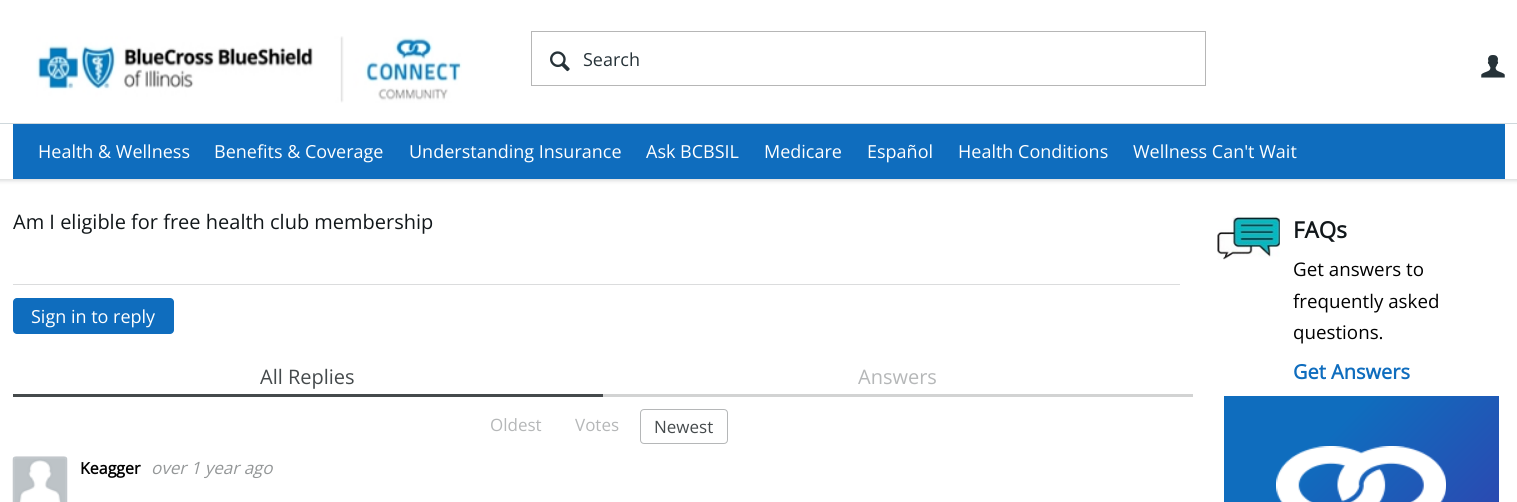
#include <cairo.h>
#include <math.h>
#include <stddef.h>

typedef struct { const char *family; double size; int italic, bold; unsigned color; } style_t;
static cairo_t *ctx;

static void ink(unsigned color) {
    cairo_set_source_rgb(ctx, (color >> 16) / 255.0, (color >> 8 & 255) / 255.0, (color & 255) / 255.0);
}

static void write(double x, double y, const char *s, const style_t *st) {
    cairo_select_font_face(ctx, st->family, st->italic ? CAIRO_FONT_SLANT_ITALIC : CAIRO_FONT_SLANT_NORMAL,
        st->bold ? CAIRO_FONT_WEIGHT_BOLD : CAIRO_FONT_WEIGHT_NORMAL);
    cairo_set_font_size(ctx, st->size);
    ink(st->color);
    cairo_move_to(ctx, x, y);
    cairo_show_text(ctx, s);
}

static void block(double x, double y, double w, double h, unsigned color) {
    ink(color);
    cairo_rectangle(ctx, x, y, w, h);
    cairo_fill(ctx);
}

static void round_path(double x, double y, double w, double h, double r) {
    cairo_new_sub_path(ctx);
    cairo_arc(ctx, x + w - r, y + h - r, r, 0, M_PI / 2);
    cairo_arc(ctx, x + r, y + h - r, r, M_PI / 2, M_PI);
    cairo_arc(ctx, x + r, y + r, r, M_PI, 1.5 * M_PI);
    cairo_arc(ctx, x + w - r, y + r, r, 1.5 * M_PI, 2 * M_PI);
    cairo_close_path(ctx);
}

static void blur_box(double x, double y, double w, double h, double r, double blur, double alpha) {
    cairo_push_group_with_content(ctx, CAIRO_CONTENT_ALPHA);
    cairo_set_operator(ctx, CAIRO_OPERATOR_SOURCE);
    for (int i = 15; i >= -15 && fmin(w, h) + blur * i / 3 > 0; i -= 2) {
        double e = blur * i / 6;
        cairo_set_source_rgba(ctx, 0, 0, 0, alpha * erfc((i - 1) / 8.5) / 2);
        round_path(x - e, y - e, w + 2 * e, h + 2 * e, fmax(0, fmin(r + e + blur * .6, fmin(w, h) / 2 + e)));
        cairo_fill(ctx);
    }
    cairo_pattern_t *soft = cairo_pop_group(ctx);
    cairo_mask(ctx, soft);
    cairo_pattern_destroy(soft);
}

static void paste(const char *path, double x, double y, double w, double h) {
    cairo_surface_t *image = cairo_image_surface_create_from_png(path);
    cairo_save(ctx);
    cairo_set_source_surface(ctx, image, x, y);
    cairo_rectangle(ctx, x, y, w, h);
    cairo_fill(ctx);
    cairo_restore(ctx);
    cairo_surface_destroy(image);
}

static const style_t s1 = {"Open Sans", 18, 0, 0, 0x263238};
static const style_t s2 = {"Open Sans", 18, 0, 0, 0xffffff};
static const style_t s3 = {"Open Sans", 20, 0, 0, 0x11171a};
static const style_t s4 = {"Open Sans", 20, 0, 0, 0x454a4c};
static const style_t s5 = {"Open Sans", 20, 0, 0, 0xb5b7b8};
static const style_t s6 = {"Open Sans", 17, 0, 0, 0xb5b7b8};
static const style_t s7 = {"Open Sans", 17, 0, 0, 0x454a4c};
static const style_t s8 = {"Open Sans", 16, 0, 1, 0x000000};
static const style_t s9 = {"Open Sans", 17, 1, 0, 0x949798};
static const style_t s10 = {"Open Sans", 22.5, 0, 1, 0x11171a};
static const style_t s11 = {"Open Sans", 18.75, 0, 0, 0x000000};
static const style_t s12 = {"Open Sans", 20, 0, 1, 0x0f6dbe};

int main(void) {
    cairo_surface_t *surface = cairo_image_surface_create(CAIRO_FORMAT_RGB24, 1517, 502);
    ctx = cairo_create(surface);
    cairo_font_options_t *options = cairo_font_options_create();
    cairo_font_options_set_hint_metrics(options, CAIRO_HINT_METRICS_OFF);
    cairo_font_options_set_hint_style(options, CAIRO_HINT_STYLE_NONE);
    cairo_set_font_options(ctx, options);
    cairo_set_miter_limit(ctx, 4);
    cairo_pattern_t *gradient;
    ink(0xffffff);
    cairo_paint(ctx);
    ink(0x11171a);
    blur_box(-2, -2, 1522, 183, 0, 2, 0.15);
    block(0, 124, 1517, 55, 0xffffff);
    block(0, 123, 1517, 1, 0xcfd8dc);
    block(0, 0, 1517, 123, 0xffffff);
    paste("pic1.png", 36, 36, 426, 67);
    cairo_rectangle(ctx, 531.5, 31.5, 674, 54);
    ink(0xb6b6b6);
    cairo_set_line_width(ctx, 1);
    cairo_stroke(ctx);
    paste("pic2.png", 550, 51, 20, 21);
    write(583, 66, "Search", &s1);
    paste("pic3.png", 1481, 55, 24, 23);
    block(13, 124, 1492, 55, 0x0f6dbe);
    write(38, 158, "Health & Wellness", &s2);
    write(214, 158, "Benefits & Coverage", &s2);
    write(409, 158, "Understanding Insurance", &s2);
    write(646, 158, "Ask BCBSIL", &s2);
    write(764, 158, "Medicare", &s2);
    write(867, 158, "Español", &s2);
    write(958, 158, "Health Conditions", &s2);
    write(1133, 158, "Wellness Can't Wait", &s2);
    block(13, 284, 1167, 1, 0xdbdcdd);
    write(13, 229, "Am I eligible for free health club membership", &s3);
    ink(0x0f6dbe);
    round_path(13, 298, 161, 36, 4);
    cairo_fill(ctx);
    write(31, 323, "Sign in to reply", &s2);
    block(13, 394, 590, 3, 0x454a4c);
    write(260, 384, "All Replies", &s4);
    block(603, 394, 590, 3, 0xd2d3d3);
    write(858, 384, "Answers", &s5);
    write(490, 431, "Oldest", &s6);
    write(575, 431, "Votes", &s6);
    round_path(640.5, 409.5, 87, 34, 3.5);
    cairo_stroke(ctx);
    write(654, 433, "Newest", &s7);
    paste("pic4.png", 12, 456, 56, 46);
    write(80, 474, "Keagger", &s8);
    write(151, 474, "over 1 year ago", &s9);
    paste("pic5.png", 1217, 216, 63, 44);
    write(1293, 238, "FAQs", &s10);
    write(1293, 276, "Get answers to", &s11);
    write(1293, 308, "frequently asked", &s11);
    write(1293, 339, "questions.", &s11);
    write(1293, 379, "Get Answers", &s12);
    gradient = cairo_pattern_create_linear(1181, 439, 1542, 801);
    cairo_pattern_add_color_stop_rgba(gradient, 0, 0.059, 0.427, 0.745, 1);
    cairo_pattern_add_color_stop_rgba(gradient, 0.2, 0.059, 0.427, 0.745, 1);
    cairo_pattern_add_color_stop_rgba(gradient, 1, 0.325, 0.094, 0.624, 1);
    cairo_set_source(ctx, gradient);
    cairo_pattern_destroy(gradient);
    cairo_rectangle(ctx, 1224, 396, 275, 106);
    cairo_fill(ctx);
    paste("pic6.png", 1276, 446, 170, 56);
    cairo_surface_write_to_png(surface, "screenshot.png");
    cairo_font_options_destroy(options);
    cairo_destroy(ctx);
    cairo_surface_destroy(surface);
    return 0;
}
